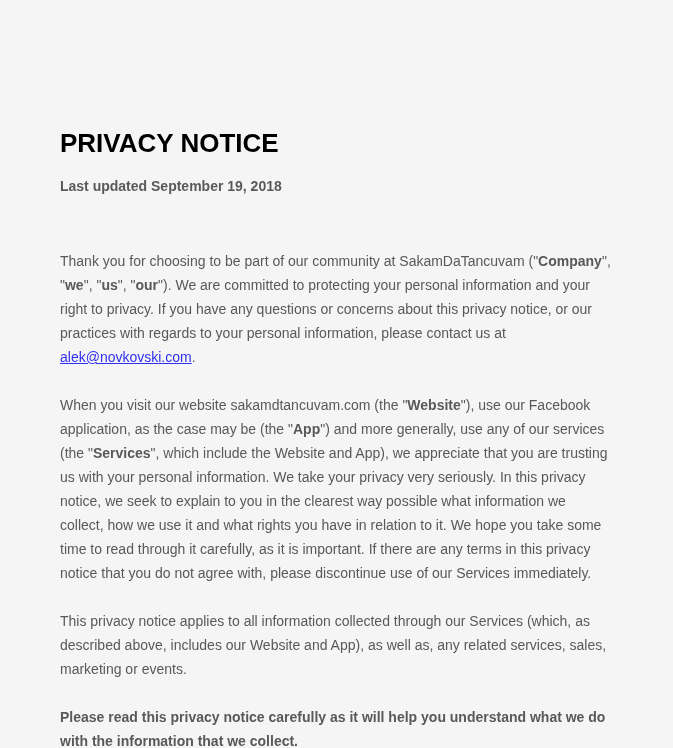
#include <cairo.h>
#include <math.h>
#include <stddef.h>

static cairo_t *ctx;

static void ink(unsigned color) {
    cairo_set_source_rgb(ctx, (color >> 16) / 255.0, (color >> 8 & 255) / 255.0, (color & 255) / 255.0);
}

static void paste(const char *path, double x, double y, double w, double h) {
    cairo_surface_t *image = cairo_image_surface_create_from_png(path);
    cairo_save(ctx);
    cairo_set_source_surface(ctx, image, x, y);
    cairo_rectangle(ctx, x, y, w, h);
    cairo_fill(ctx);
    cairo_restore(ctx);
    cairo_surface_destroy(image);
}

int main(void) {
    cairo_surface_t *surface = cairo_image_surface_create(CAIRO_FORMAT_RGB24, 673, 748);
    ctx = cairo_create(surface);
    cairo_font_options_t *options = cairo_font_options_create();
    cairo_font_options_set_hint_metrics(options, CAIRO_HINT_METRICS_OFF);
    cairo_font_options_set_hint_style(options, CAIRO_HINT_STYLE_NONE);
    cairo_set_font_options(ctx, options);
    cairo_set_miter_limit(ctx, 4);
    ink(0xf5f5f5);
    cairo_paint(ctx);
    paste("pic1.png", 60, 134, 550, 612);
    cairo_surface_write_to_png(surface, "screenshot.png");
    cairo_font_options_destroy(options);
    cairo_destroy(ctx);
    cairo_surface_destroy(surface);
    return 0;
}
